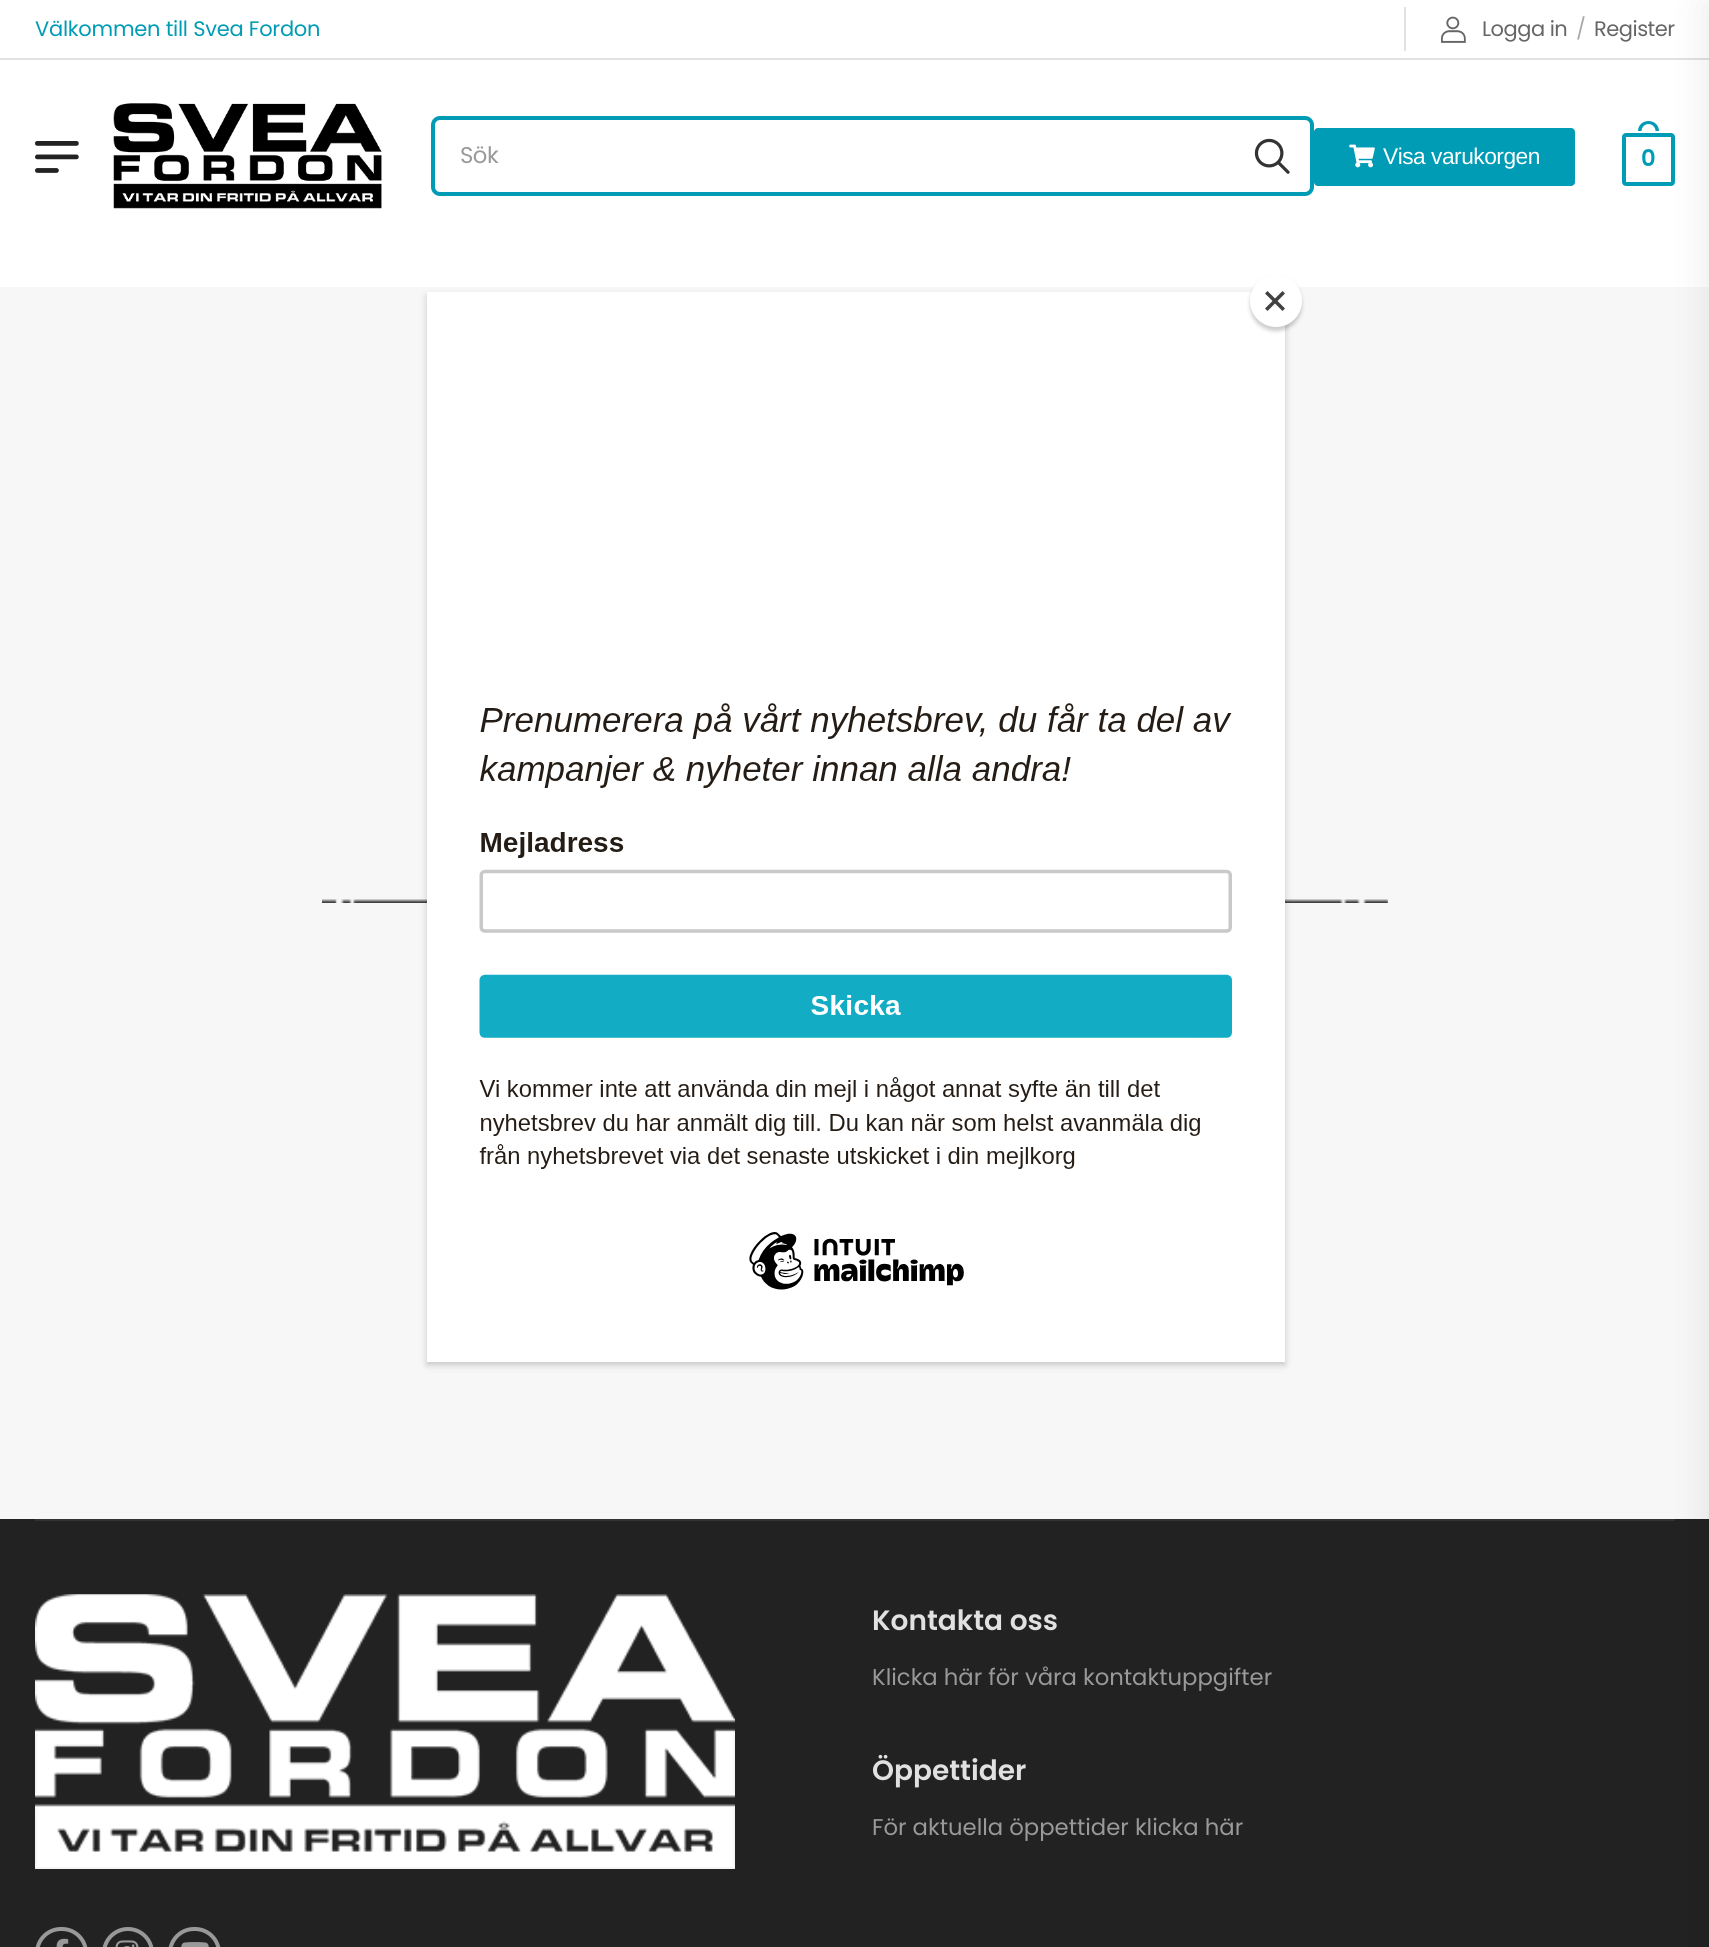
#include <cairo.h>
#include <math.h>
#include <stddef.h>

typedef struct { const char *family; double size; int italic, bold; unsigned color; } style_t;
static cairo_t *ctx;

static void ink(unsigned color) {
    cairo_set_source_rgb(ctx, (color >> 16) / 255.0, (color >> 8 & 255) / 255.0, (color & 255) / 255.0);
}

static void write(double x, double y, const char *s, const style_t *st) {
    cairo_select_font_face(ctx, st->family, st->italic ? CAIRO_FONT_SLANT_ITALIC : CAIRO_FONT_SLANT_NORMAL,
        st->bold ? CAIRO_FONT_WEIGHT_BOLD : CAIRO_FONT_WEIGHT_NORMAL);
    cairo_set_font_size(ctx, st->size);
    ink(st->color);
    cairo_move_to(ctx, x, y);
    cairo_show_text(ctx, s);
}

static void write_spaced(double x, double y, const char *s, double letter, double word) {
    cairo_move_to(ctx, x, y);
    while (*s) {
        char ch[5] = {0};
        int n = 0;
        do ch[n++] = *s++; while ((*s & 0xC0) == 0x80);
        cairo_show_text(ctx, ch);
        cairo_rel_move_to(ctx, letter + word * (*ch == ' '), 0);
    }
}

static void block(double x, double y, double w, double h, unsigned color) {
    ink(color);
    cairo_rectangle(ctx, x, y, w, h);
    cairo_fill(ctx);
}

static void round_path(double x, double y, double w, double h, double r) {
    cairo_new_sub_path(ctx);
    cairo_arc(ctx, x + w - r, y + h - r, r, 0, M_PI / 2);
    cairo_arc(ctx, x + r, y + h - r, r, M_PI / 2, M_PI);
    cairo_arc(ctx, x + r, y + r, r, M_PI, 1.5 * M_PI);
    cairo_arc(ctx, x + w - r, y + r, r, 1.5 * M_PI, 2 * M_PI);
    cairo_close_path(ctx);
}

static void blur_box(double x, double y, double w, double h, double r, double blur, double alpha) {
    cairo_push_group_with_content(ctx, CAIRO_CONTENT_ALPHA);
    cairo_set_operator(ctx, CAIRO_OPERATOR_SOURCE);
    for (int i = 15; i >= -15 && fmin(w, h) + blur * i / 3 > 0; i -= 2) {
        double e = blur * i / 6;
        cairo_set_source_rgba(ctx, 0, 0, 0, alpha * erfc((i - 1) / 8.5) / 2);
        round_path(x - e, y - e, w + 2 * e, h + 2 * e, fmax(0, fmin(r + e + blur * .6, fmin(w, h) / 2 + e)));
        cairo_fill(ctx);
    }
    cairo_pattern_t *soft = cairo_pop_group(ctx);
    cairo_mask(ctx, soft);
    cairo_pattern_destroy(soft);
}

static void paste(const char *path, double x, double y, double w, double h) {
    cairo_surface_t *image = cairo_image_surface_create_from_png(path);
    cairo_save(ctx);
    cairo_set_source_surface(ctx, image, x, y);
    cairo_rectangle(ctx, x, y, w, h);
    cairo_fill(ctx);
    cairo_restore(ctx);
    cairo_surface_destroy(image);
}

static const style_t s1 = {"Poppins SemiBold", 28, 0, 0, 0xe1e1e1};
static const style_t s2 = {"Poppins", 22.75, 0, 0, 0x999999};

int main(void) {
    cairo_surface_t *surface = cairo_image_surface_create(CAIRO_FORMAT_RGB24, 1709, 1947);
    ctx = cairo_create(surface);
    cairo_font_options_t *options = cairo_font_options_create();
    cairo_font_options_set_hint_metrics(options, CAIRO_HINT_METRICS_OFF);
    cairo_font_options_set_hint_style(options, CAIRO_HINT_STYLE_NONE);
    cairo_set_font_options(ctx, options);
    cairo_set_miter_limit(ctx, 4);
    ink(0xffffff);
    cairo_paint(ctx);
    block(0, 58, 1709, 2, 0xe1e1e1);
    cairo_select_font_face(ctx, "Poppins", CAIRO_FONT_SLANT_NORMAL, CAIRO_FONT_WEIGHT_NORMAL);
    cairo_set_font_size(ctx, 21);
    ink(0x009bb4);
    write_spaced(35, 36, "Välkommen till Svea Fordon", -0.25, 0);
    block(1404, 7, 2, 44, 0xe1e1e1);
    paste("pic1.png", 1441, 16, 25, 27);
    ink(0x666666);
    write_spaced(1482, 36, "Logga in", -0.5, 0);
    ink(0xaaaaaa);
    write_spaced(1576, 36, "/", -0.5, 0);
    ink(0x666666);
    write_spaced(1594, 36, "Register", -0.5, 0);
    paste("pic2.png", 35, 141, 44, 32);
    paste("pic3.png", 113, 103, 269, 106);
    round_path(433, 118, 879, 76, 7);
    ink(0x009bb4);
    cairo_set_line_width(ctx, 4);
    cairo_stroke(ctx);
    cairo_set_font_size(ctx, 22.75);
    ink(0x999999);
    write_spaced(460, 163, "Sök", -0.5, 0);
    paste("pic4.png", 1254, 138, 36, 36);
    ink(0x009bb4);
    round_path(1314, 128, 261, 58, 4);
    cairo_fill(ctx);
    paste("pic5.png", 1349, 144, 26, 24);
    cairo_select_font_face(ctx, "Liberation Sans", CAIRO_FONT_SLANT_NORMAL, CAIRO_FONT_WEIGHT_NORMAL);
    ink(0xffffff);
    write_spaced(1383, 164, "Visa varukorgen", -0.5, 0);
    round_path(1624, 135, 49, 49, 2);
    ink(0x009bb4);
    cairo_stroke(ctx);
    cairo_set_fill_rule(ctx, CAIRO_FILL_RULE_EVEN_ODD);
    cairo_new_path(ctx);
    cairo_move_to(ctx, 1648.5, 121);
    cairo_curve_to(ctx, 1654.5, 121, 1659, 125.5, 1659, 131);
    cairo_line_to(ctx, 1638, 131);
    cairo_curve_to(ctx, 1638, 125.5, 1642.5, 121, 1648.5, 121);
    cairo_close_path(ctx);
    cairo_move_to(ctx, 1648.5, 124);
    cairo_curve_to(ctx, 1652.5, 124, 1655.5, 127.5, 1655.5, 131);
    cairo_line_to(ctx, 1641.5, 131);
    cairo_curve_to(ctx, 1641.5, 127.5, 1644.5, 124, 1648.5, 124);
    cairo_close_path(ctx);
    cairo_fill(ctx);
    cairo_select_font_face(ctx, "Poppins SemiBold", CAIRO_FONT_SLANT_NORMAL, CAIRO_FONT_WEIGHT_NORMAL);
    write_spaced(1641, 166, "0", -0.5, 0);
    block(0, 287, 1709, 1232, 0xf7f7f7);
    block(0, 1519, 1709, 428, 0x222222);
    block(35, 1519, 1640, 2, 0x333333);
    ink(0x000000);
    blur_box(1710, 4, 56, 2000, 0, 19, 0.1);
    paste("pic6.png", 322, 899, 1066, 4);
    paste("pic7.png", 35, 1594, 700, 275);
    write(872, 1630, "Kontakta oss", &s1);
    write(872, 1685, "Klicka här för våra kontaktuppgifter", &s2);
    write(872, 1780, "Öppettider", &s1);
    write(872, 1835, "För aktuella öppettider klicka här", &s2);
    round_path(37, 1929, 49, 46, 24);
    cairo_stroke(ctx);
    paste("pic8.png", 56, 1938, 13, 9);
    round_path(104, 1929, 48, 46, 24);
    cairo_stroke(ctx);
    paste("pic9.png", 115, 1940, 24, 7);
    round_path(170, 1929, 49, 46, 24);
    cairo_stroke(ctx);
    paste("pic10.png", 181, 1942, 28, 5);
    ink(0x000000);
    blur_box(427, 296, 858, 1069, 0, 3.5, 0.2);
    paste("pic11.png", 427, 292, 858, 1070);
    blur_box(1250, 278, 52, 53, 26, 2, 0.2);
    ink(0xffffff);
    cairo_arc(ctx, 1276, 301, 26, 0, 2 * M_PI);
    cairo_fill(ctx);
    ink(0x414141);
    cairo_set_fill_rule(ctx, CAIRO_FILL_RULE_WINDING);
    cairo_new_path(ctx);
    cairo_move_to(ctx, 1282.5, 291);
    cairo_line_to(ctx, 1285, 293.5);
    cairo_line_to(ctx, 1267.5, 311);
    cairo_line_to(ctx, 1265, 308.5);
    cairo_close_path(ctx);
    cairo_fill(ctx);
    cairo_new_path(ctx);
    cairo_move_to(ctx, 1265, 293.5);
    cairo_line_to(ctx, 1267.5, 291);
    cairo_line_to(ctx, 1285, 308.5);
    cairo_line_to(ctx, 1282.5, 311);
    cairo_close_path(ctx);
    cairo_fill(ctx);
    cairo_surface_write_to_png(surface, "screenshot.png");
    cairo_font_options_destroy(options);
    cairo_destroy(ctx);
    cairo_surface_destroy(surface);
    return 0;
}
